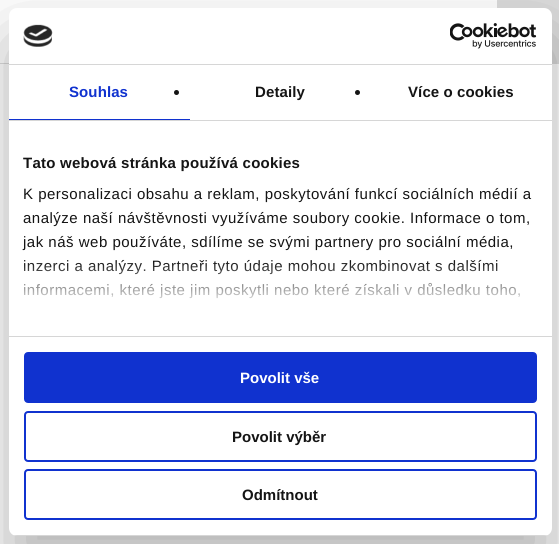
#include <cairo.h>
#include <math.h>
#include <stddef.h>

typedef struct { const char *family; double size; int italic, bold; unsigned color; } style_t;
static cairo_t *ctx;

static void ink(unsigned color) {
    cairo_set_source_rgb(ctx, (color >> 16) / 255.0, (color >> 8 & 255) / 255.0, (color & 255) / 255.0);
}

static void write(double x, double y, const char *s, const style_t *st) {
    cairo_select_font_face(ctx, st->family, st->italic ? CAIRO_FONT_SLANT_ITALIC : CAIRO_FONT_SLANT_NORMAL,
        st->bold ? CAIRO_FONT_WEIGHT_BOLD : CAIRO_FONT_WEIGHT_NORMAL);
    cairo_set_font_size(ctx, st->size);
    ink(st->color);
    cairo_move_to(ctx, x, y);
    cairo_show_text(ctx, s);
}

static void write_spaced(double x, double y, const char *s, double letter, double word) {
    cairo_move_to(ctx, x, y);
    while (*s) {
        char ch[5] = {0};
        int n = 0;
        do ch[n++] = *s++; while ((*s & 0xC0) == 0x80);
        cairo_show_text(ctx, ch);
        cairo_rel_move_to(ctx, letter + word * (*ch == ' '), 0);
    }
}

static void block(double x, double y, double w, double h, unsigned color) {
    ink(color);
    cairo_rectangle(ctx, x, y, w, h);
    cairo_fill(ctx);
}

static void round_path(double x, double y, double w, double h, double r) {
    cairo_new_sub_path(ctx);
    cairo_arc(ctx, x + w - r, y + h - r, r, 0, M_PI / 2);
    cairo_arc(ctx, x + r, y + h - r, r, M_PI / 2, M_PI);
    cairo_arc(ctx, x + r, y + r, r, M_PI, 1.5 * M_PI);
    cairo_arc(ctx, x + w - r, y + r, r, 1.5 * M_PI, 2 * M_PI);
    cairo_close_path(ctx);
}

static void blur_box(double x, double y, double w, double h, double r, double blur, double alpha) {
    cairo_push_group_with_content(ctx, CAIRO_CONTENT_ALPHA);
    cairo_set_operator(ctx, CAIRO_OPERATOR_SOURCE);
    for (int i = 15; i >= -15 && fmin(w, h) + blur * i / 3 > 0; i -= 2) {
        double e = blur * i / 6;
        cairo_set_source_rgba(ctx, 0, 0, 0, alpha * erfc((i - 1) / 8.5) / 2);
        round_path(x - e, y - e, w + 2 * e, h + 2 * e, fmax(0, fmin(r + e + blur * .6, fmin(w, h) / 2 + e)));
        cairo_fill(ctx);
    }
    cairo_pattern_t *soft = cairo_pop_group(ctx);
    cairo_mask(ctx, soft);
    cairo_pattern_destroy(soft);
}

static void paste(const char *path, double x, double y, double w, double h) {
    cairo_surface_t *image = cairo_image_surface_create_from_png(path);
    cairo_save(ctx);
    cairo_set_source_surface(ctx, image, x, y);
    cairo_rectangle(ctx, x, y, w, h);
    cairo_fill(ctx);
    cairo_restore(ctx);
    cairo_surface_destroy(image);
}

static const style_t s1 = {"Liberation Sans", 15, 0, 1, 0xffffff};
static const style_t s2 = {"Liberation Sans", 15, 0, 1, 0x141414};

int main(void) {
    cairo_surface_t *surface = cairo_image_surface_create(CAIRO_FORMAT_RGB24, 559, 544);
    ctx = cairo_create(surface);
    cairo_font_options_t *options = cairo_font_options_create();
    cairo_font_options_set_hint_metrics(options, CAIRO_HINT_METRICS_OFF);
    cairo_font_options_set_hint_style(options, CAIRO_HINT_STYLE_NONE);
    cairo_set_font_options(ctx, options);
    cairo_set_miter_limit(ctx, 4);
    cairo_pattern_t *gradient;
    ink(0xffffff);
    cairo_paint(ctx);
    block(0, 63, 9, 1, 0xdcdcdc);
    block(497, 0, 62, 64, 0xdcdcdc);
    ink(0x000000);
    blur_box(9, 40, 543, 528, 8, 34, 0.3);
    ink(0xffffff);
    round_path(9, 8, 543, 528, 8);
    cairo_fill(ctx);
    block(9, 64, 543, 1, 0xd6d6d6);
    paste("pic1.png", 23, 24, 30, 23);
    paste("pic2.png", 450, 23, 87, 26);
    block(9, 120, 543, 1, 0xd6d6d6);
    block(9, 119, 181, 1, 0x1032cf);
    cairo_select_font_face(ctx, "Liberation Sans", CAIRO_FONT_SLANT_NORMAL, CAIRO_FONT_WEIGHT_BOLD);
    cairo_set_font_size(ctx, 15);
    write_spaced(69, 97, "Souhlas", 0.1, 0);
    ink(0x141414);
    cairo_new_path(ctx);
    cairo_arc(ctx, 176.5, 92.5, 2.5, 0, 2 * M_PI);
    cairo_fill(ctx);
    write_spaced(255, 97, "Detaily", 0.1, 0);
    cairo_new_path(ctx);
    cairo_arc(ctx, 357.5, 92.5, 2.5, 0, 2 * M_PI);
    cairo_fill(ctx);
    write_spaced(408, 97, "Více o cookies", 0.1, 0);
    block(9, 336, 543, 1, 0xd6d6d6);
    ink(0x141414);
    write_spaced(23, 168, "Tato webová stránka používá cookies", 0.25, 0);
    cairo_select_font_face(ctx, "Liberation Sans", CAIRO_FONT_SLANT_NORMAL, CAIRO_FONT_WEIGHT_NORMAL);
    write_spaced(23, 199, "K personalizaci obsahu a reklam, poskytování funkcí sociálních médií a", 0.5, 0);
    write_spaced(23, 223, "analýze naší návštěvnosti využíváme soubory cookie. Informace o tom,", 0.5, 0);
    write_spaced(23, 247, "jak náš web používáte, sdílíme se svými partnery pro sociální média,", 0.5, 0);
    write_spaced(23, 271, "inzerci a analýzy. Partneři tyto údaje mohou zkombinovat s dalšími", 0.5, 0);
    write_spaced(23, 295, "informacemi, které jste jim poskytli nebo které získali v důsledku toho,", 0.5, 0);
    gradient = cairo_pattern_create_linear(274, 336, 274, 261);
    cairo_pattern_add_color_stop_rgba(gradient, 0, 1, 1, 1, 1);
    cairo_pattern_add_color_stop_rgba(gradient, 0.5, 1, 1, 1, 0.8);
    cairo_pattern_add_color_stop_rgba(gradient, 1, 1, 1, 1, 0);
    cairo_set_source(ctx, gradient);
    cairo_pattern_destroy(gradient);
    cairo_rectangle(ctx, 24, 262, 496, 37);
    cairo_fill(ctx);
    cairo_save(ctx);
    round_path(9, 8, 543, 528, 8);
    cairo_clip(ctx);
    block(9, 535, 543, 1, 0xd6d6d6);
    cairo_restore(ctx);
    ink(0x1032cf);
    round_path(25, 353, 511, 49, 3);
    cairo_fill_preserve(ctx);
    cairo_stroke(ctx);
    write(240, 383, "Povolit vše", &s1);
    round_path(25, 412, 511, 49, 3);
    ink(0x1032cf);
    cairo_stroke(ctx);
    write(232, 442, "Povolit výběr", &s2);
    round_path(25, 470, 511, 49, 3);
    ink(0x1032cf);
    cairo_stroke(ctx);
    write(242, 500, "Odmítnout", &s2);
    cairo_surface_write_to_png(surface, "screenshot.png");
    cairo_font_options_destroy(options);
    cairo_destroy(ctx);
    cairo_surface_destroy(surface);
    return 0;
}
